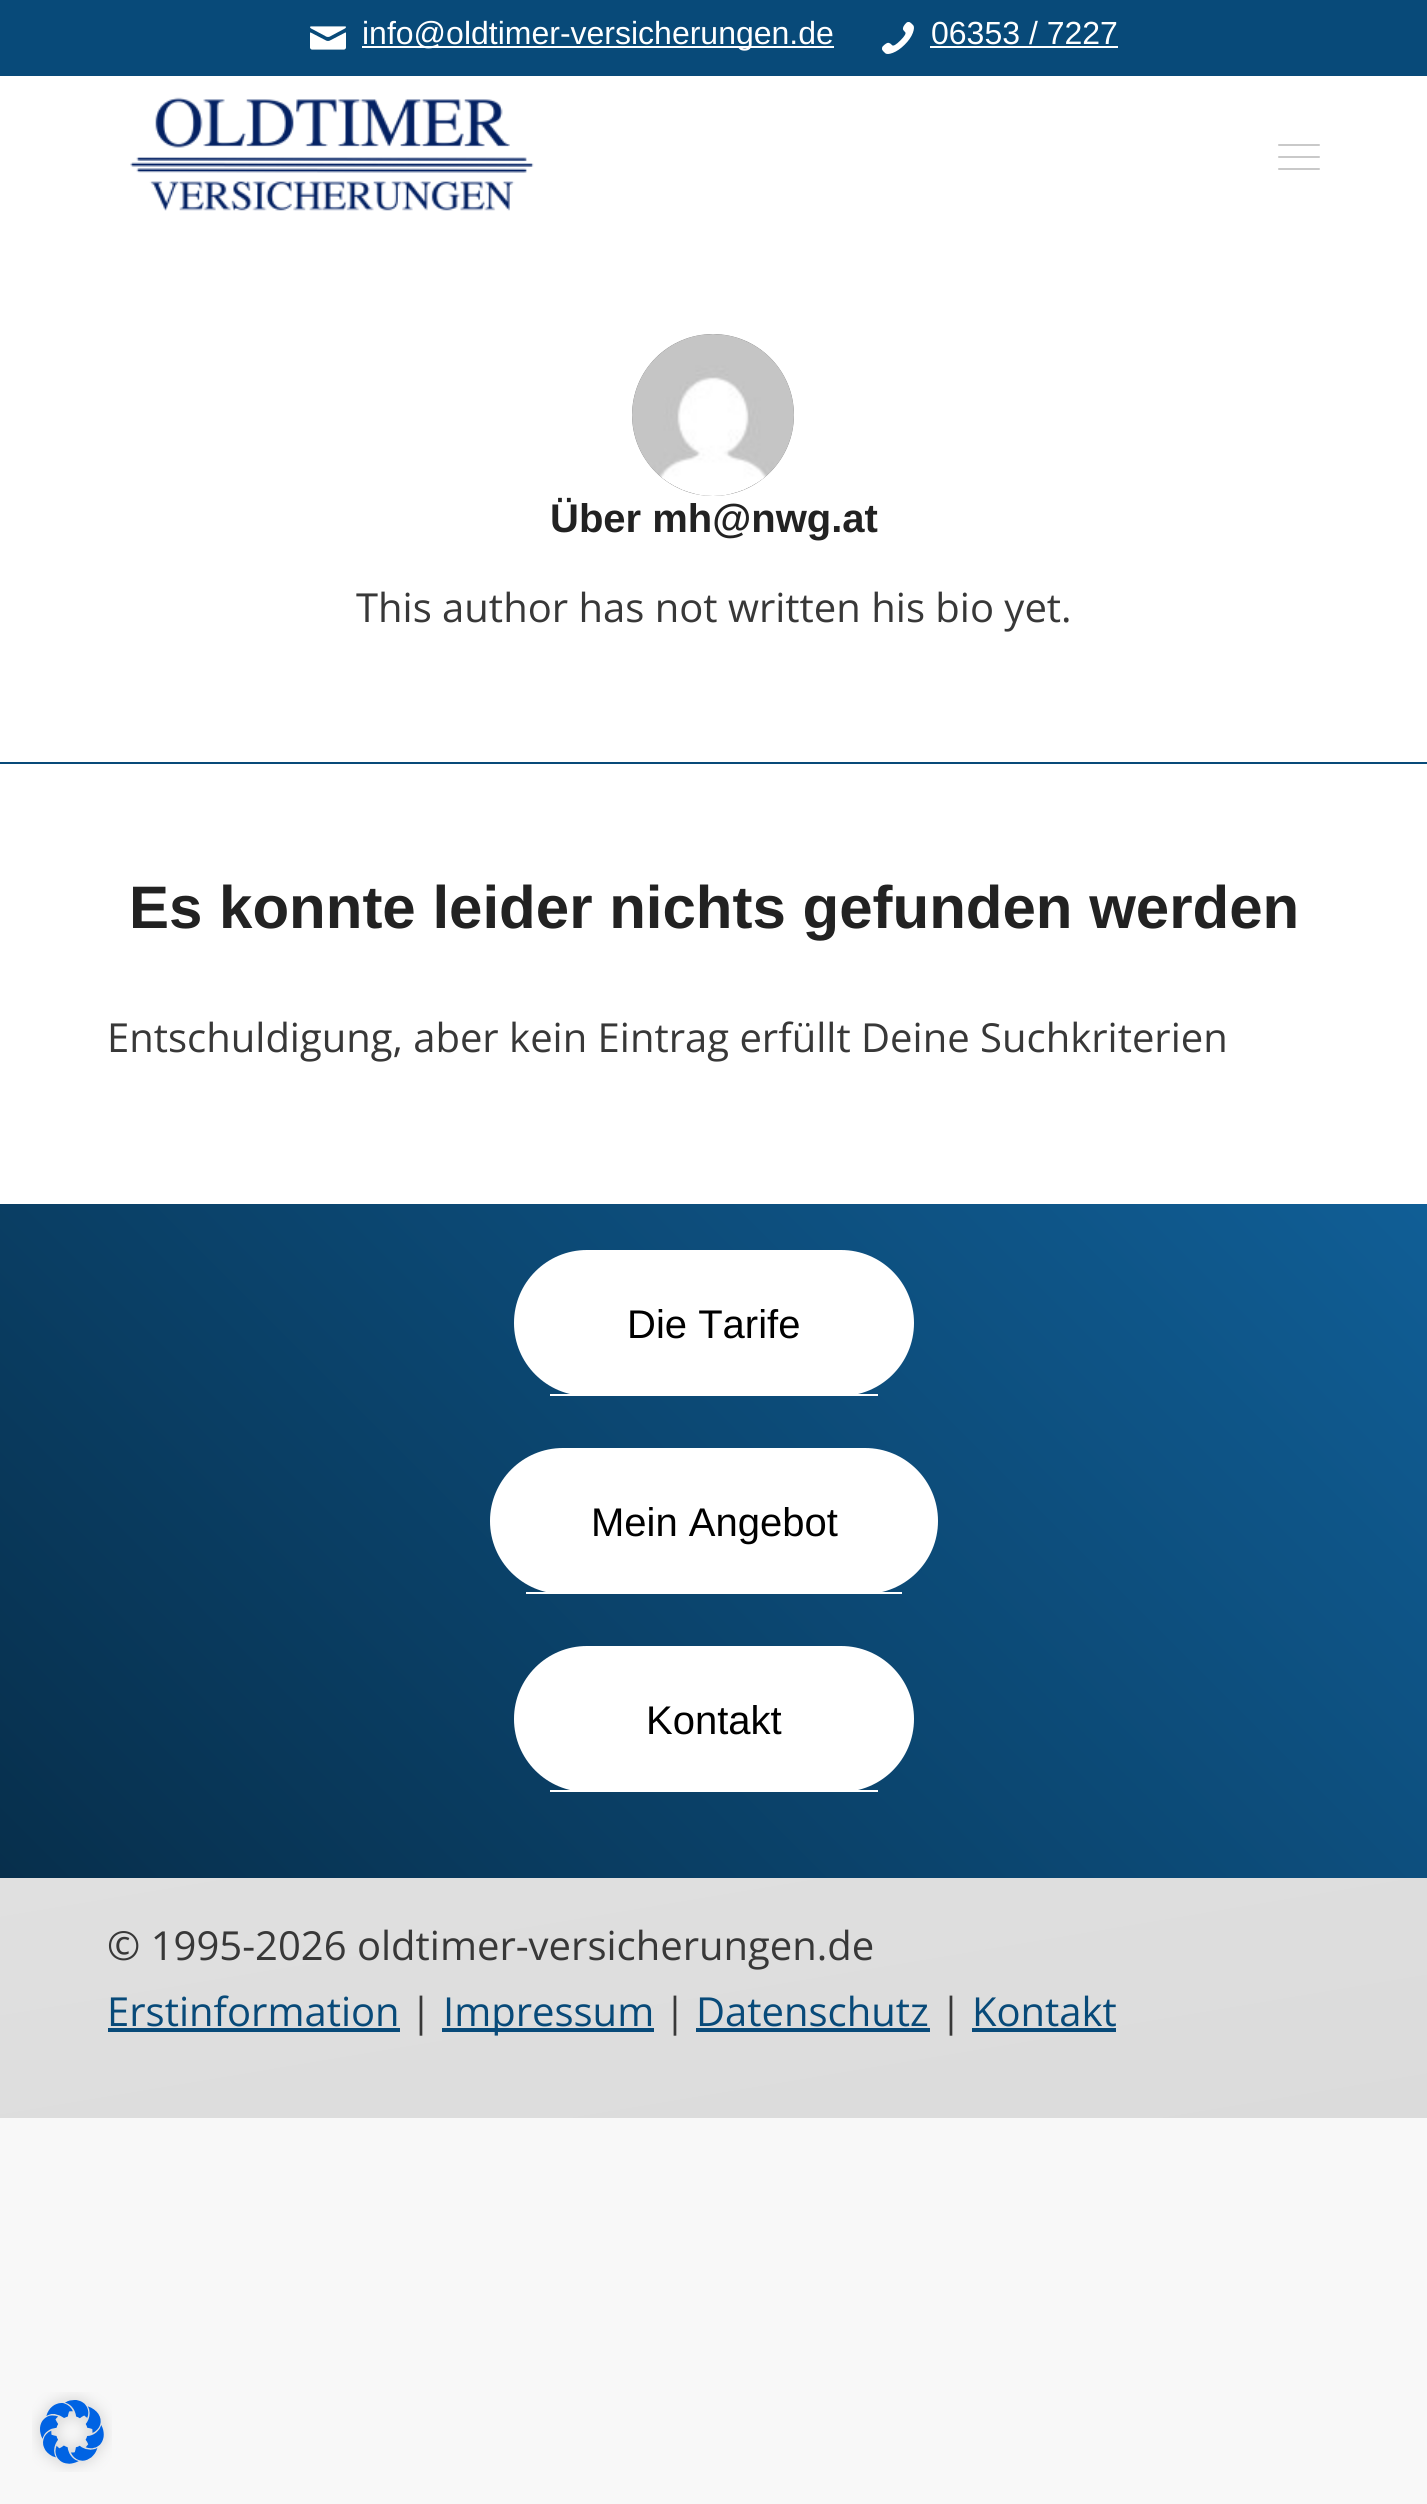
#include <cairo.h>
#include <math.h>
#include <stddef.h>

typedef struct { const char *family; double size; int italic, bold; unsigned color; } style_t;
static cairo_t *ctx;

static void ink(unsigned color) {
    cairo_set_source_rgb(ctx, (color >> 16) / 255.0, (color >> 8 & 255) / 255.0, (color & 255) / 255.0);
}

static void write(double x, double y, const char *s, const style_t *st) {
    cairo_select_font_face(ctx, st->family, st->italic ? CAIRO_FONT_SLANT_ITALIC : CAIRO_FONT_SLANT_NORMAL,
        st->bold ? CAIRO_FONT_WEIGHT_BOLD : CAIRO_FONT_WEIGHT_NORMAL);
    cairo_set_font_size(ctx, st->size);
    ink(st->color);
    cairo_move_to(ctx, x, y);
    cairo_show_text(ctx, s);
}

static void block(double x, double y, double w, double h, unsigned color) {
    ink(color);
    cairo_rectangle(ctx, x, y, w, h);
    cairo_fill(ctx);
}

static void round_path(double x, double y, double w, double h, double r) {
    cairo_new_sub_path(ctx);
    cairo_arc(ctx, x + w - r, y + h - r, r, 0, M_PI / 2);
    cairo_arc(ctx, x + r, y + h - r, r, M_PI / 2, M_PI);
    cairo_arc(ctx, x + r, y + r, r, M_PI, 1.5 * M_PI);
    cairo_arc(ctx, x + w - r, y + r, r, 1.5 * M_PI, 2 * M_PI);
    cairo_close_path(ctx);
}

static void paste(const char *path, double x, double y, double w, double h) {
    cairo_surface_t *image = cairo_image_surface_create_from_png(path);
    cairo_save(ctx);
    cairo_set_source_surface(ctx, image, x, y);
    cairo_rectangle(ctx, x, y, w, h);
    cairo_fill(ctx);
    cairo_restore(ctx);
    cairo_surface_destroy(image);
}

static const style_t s1 = {"Liberation Sans", 32, 0, 0, 0xffffff};
static const style_t s2 = {"Liberation Sans", 40, 0, 1, 0x222222};
static const style_t s3 = {"Open Sans", 40, 0, 0, 0x383838};
static const style_t s4 = {"Liberation Sans", 60, 0, 1, 0x222222};
static const style_t s5 = {"Liberation Sans", 40, 0, 0, 0x000000};
static const style_t s6 = {"Open Sans", 40, 0, 0, 0x084a79};

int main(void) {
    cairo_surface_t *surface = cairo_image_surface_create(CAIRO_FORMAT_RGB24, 1427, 2504);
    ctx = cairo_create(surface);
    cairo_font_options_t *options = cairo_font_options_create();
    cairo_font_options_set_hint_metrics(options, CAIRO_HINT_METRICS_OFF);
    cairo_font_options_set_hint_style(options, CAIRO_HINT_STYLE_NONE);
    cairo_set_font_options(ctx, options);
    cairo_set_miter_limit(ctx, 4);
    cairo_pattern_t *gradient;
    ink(0xf8f8f8);
    cairo_paint(ctx);
    block(0, 76, 1427, 1128, 0xffffff);
    block(0, 0, 1427, 76, 0x084a79);
    paste("pic1.png", 310, 26, 36, 24);
    block(362, 46, 472, 2, 0xffffff);
    write(362, 44, "info@oldtimer-versicherungen.de", &s1);
    paste("pic2.png", 882, 22, 32, 32);
    write(931, 44, "06353 / 7227", &s1);
    block(930, 46, 188, 2, 0xffffff);
    paste("pic3.png", 130, 97, 404, 114);
    ink(0xc9c9c9);
    round_path(1278, 156, 42, 2, 1);
    cairo_fill(ctx);
    round_path(1278, 144, 42, 2, 1);
    cairo_fill(ctx);
    round_path(1278, 168, 42, 2, 1);
    cairo_fill(ctx);
    ink(0x919191);
    cairo_arc(ctx, 713, 415, 81, 0, 2 * M_PI);
    cairo_fill(ctx);
    paste("pic4.png", 632, 334, 162, 162);
    write(550, 532, "Über mh@nwg.at", &s2);
    write(356, 622, "This author has not written his bio yet.", &s3);
    block(0, 762, 1427, 2, 0x084a79);
    write(129, 928, "Es konnte leider nichts gefunden werden", &s4);
    write(107, 1052, "Entschuldigung, aber kein Eintrag erfüllt Deine Suchkriterien", &s3);
    gradient = cairo_pattern_create_linear(189, 2067, 1240, 1016);
    cairo_pattern_add_color_stop_rgba(gradient, 0, 0.027, 0.184, 0.298, 1);
    cairo_pattern_add_color_stop_rgba(gradient, 1, 0.063, 0.369, 0.588, 1);
    cairo_set_source(ctx, gradient);
    cairo_pattern_destroy(gradient);
    cairo_rectangle(ctx, 0, 1204, 1427, 674);
    cairo_fill(ctx);
    ink(0xffffff);
    round_path(514, 1250, 400, 146, 73);
    cairo_fill(ctx);
    block(550, 1394, 328, 2, 0xffffff);
    write(627, 1338, "Die Tarife", &s5);
    ink(0xffffff);
    round_path(490, 1448, 448, 146, 73);
    cairo_fill(ctx);
    block(526, 1592, 376, 2, 0xffffff);
    write(591, 1536, "Mein Angebot", &s5);
    ink(0xffffff);
    round_path(514, 1646, 400, 146, 73);
    cairo_fill(ctx);
    block(550, 1790, 328, 2, 0xffffff);
    write(646, 1734, "Kontakt", &s5);
    gradient = cairo_pattern_create_linear(675, 1765, 753, 2231);
    cairo_pattern_add_color_stop_rgba(gradient, 0, 0.878, 0.878, 0.878, 1);
    cairo_pattern_add_color_stop_rgba(gradient, 1, 0.859, 0.859, 0.859, 1);
    cairo_set_source(ctx, gradient);
    cairo_pattern_destroy(gradient);
    cairo_rectangle(ctx, 0, 1878, 1427, 240);
    cairo_fill(ctx);
    write(107, 1960, "© 1995-2026 oldtimer-versicherungen.de", &s3);
    write(107, 2026, "Erstinformation", &s6);
    block(108, 2028, 292, 4, 0x084a79);
    write(410, 2026, "|", &s3);
    block(442, 2028, 212, 4, 0x084a79);
    write(443, 2026, "Impressum", &s6);
    write(664, 2026, "|", &s3);
    write(696, 2026, "Datenschutz", &s6);
    block(696, 2028, 234, 4, 0x084a79);
    write(940, 2026, "|", &s3);
    write(972, 2026, "Kontakt", &s6);
    block(972, 2028, 144, 4, 0x084a79);
    paste("pic5.png", 32, 2392, 80, 80);
    cairo_surface_write_to_png(surface, "screenshot.png");
    cairo_font_options_destroy(options);
    cairo_destroy(ctx);
    cairo_surface_destroy(surface);
    return 0;
}
